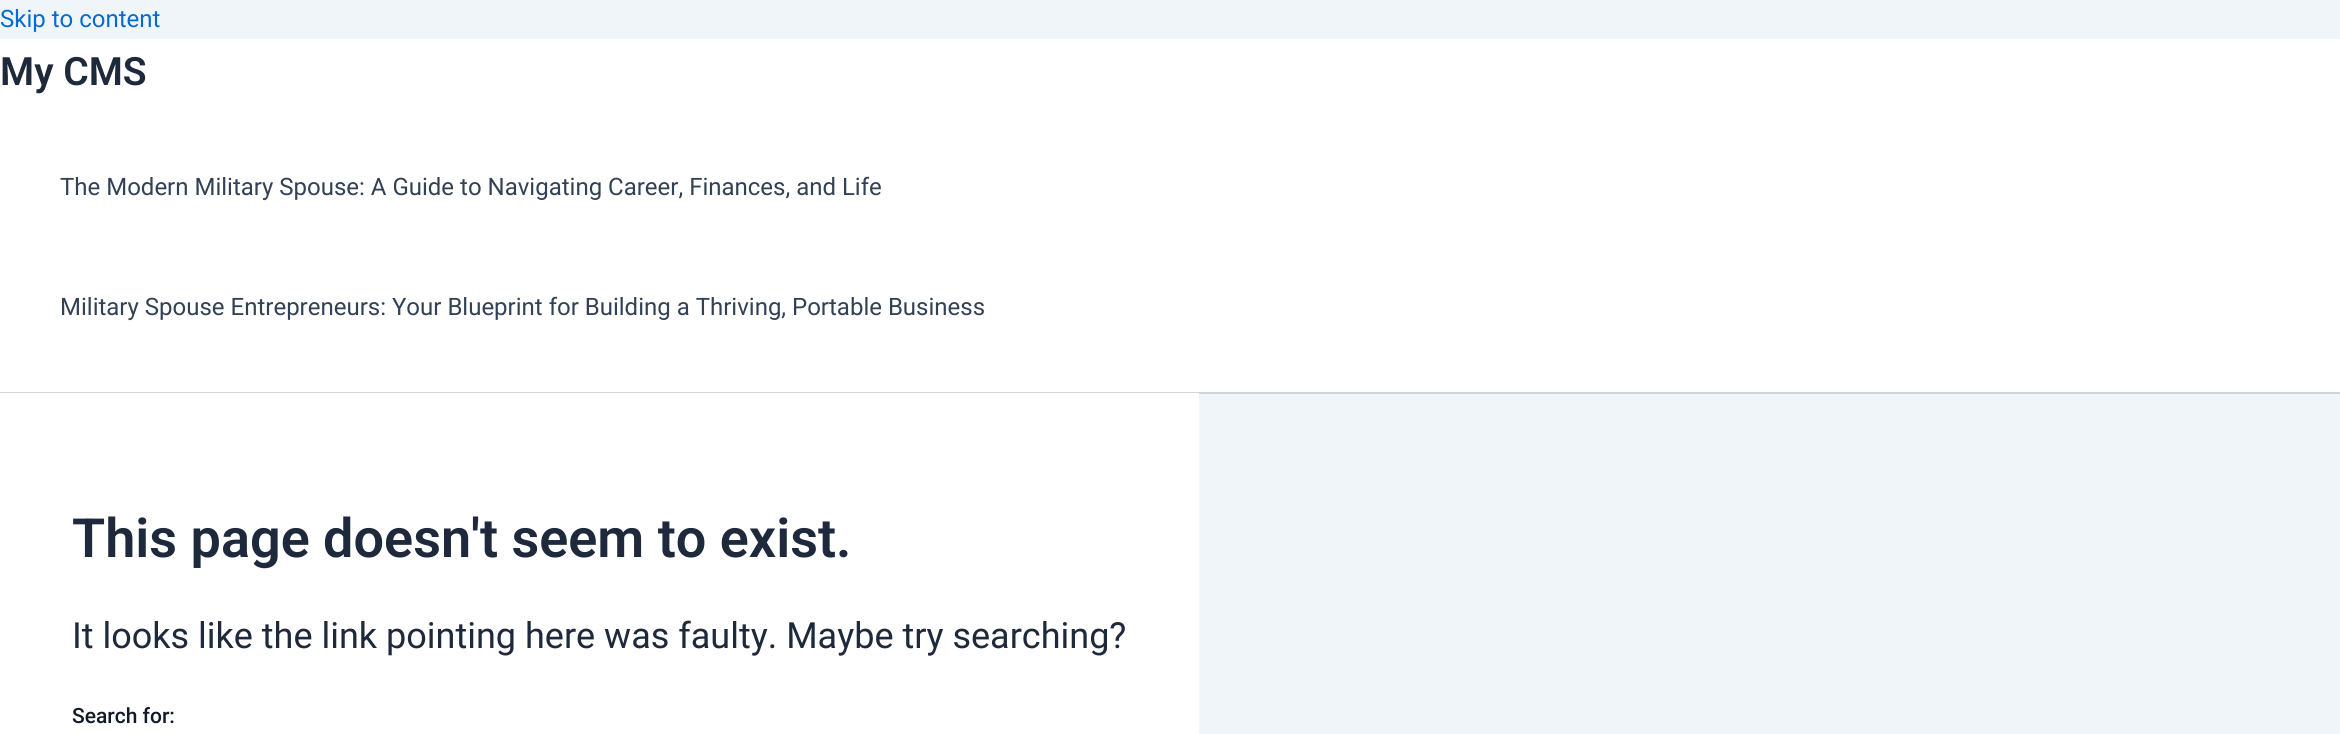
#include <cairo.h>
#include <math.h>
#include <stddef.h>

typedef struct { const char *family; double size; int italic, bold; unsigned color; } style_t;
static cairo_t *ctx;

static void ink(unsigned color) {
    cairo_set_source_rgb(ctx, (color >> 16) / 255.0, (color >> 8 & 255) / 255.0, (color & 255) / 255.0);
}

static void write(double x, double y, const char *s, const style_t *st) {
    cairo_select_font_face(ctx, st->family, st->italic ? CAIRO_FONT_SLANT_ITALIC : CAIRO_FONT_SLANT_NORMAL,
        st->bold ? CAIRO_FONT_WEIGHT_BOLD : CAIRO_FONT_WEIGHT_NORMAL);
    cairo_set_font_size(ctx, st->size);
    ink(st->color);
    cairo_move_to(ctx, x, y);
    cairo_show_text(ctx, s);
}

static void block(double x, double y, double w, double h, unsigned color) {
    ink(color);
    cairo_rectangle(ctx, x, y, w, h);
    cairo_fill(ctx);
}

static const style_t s1 = {"Roboto", 24, 0, 0, 0x046bd2};
static const style_t s2 = {"Roboto SemiBold", 39, 0, 0, 0x1e293b};
static const style_t s3 = {"Roboto", 24, 0, 0, 0x334155};
static const style_t s4 = {"Roboto SemiBold", 54, 0, 0, 0x1e293b};
static const style_t s5 = {"Roboto", 36, 0, 0, 0x1e293b};
static const style_t s6 = {"Roboto Medium", 21, 0, 0, 0x111827};

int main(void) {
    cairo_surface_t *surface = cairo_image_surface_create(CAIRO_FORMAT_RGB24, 2340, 734);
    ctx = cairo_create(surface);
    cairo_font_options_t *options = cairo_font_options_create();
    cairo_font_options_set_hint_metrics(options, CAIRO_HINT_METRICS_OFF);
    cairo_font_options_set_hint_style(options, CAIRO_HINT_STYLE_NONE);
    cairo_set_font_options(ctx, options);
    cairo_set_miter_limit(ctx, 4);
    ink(0xf0f5fa);
    cairo_paint(ctx);
    write(0, 27, "Skip to content", &s1);
    block(0, 39, 2340, 353, 0xffffff);
    block(0, 392, 2340, 2, 0xd1d5db);
    write(0, 85, "My CMS", &s2);
    write(60, 195, "The Modern Military Spouse: A Guide to Navigating Career, Finances, and Life", &s3);
    write(60, 315, "Military Spouse Entrepreneurs: Your Blueprint for Building a Thriving, Portable Business", &s3);
    block(0, 393, 1199, 341, 0xffffff);
    write(72, 557, "This page doesn't seem to exist.", &s4);
    write(72, 648, "It looks like the link pointing here was faulty. Maybe try searching?", &s5);
    write(72, 723, "Search for:", &s6);
    cairo_surface_write_to_png(surface, "screenshot.png");
    cairo_font_options_destroy(options);
    cairo_destroy(ctx);
    cairo_surface_destroy(surface);
    return 0;
}
